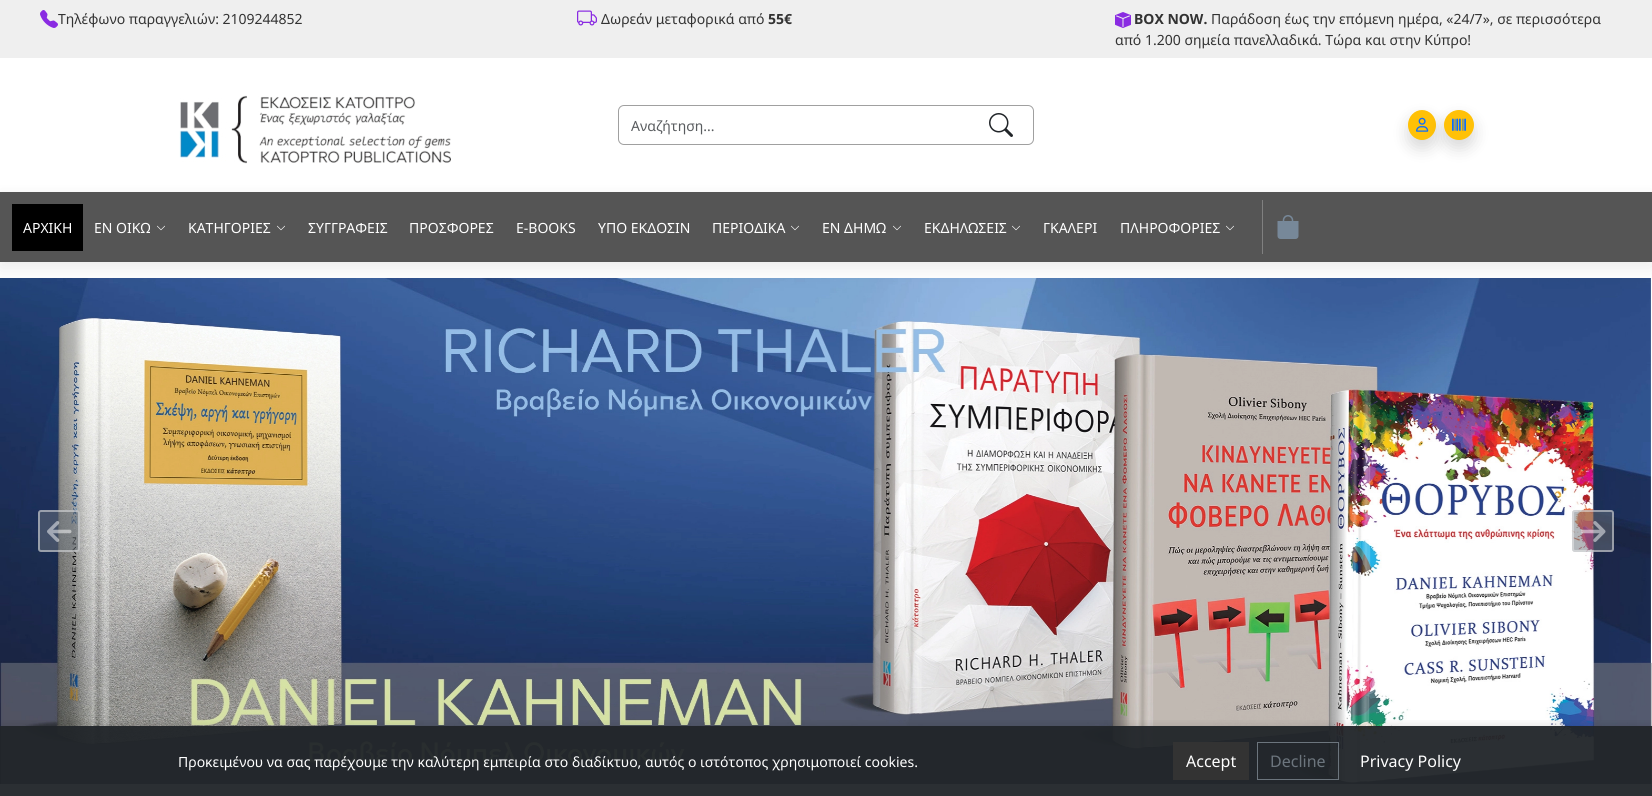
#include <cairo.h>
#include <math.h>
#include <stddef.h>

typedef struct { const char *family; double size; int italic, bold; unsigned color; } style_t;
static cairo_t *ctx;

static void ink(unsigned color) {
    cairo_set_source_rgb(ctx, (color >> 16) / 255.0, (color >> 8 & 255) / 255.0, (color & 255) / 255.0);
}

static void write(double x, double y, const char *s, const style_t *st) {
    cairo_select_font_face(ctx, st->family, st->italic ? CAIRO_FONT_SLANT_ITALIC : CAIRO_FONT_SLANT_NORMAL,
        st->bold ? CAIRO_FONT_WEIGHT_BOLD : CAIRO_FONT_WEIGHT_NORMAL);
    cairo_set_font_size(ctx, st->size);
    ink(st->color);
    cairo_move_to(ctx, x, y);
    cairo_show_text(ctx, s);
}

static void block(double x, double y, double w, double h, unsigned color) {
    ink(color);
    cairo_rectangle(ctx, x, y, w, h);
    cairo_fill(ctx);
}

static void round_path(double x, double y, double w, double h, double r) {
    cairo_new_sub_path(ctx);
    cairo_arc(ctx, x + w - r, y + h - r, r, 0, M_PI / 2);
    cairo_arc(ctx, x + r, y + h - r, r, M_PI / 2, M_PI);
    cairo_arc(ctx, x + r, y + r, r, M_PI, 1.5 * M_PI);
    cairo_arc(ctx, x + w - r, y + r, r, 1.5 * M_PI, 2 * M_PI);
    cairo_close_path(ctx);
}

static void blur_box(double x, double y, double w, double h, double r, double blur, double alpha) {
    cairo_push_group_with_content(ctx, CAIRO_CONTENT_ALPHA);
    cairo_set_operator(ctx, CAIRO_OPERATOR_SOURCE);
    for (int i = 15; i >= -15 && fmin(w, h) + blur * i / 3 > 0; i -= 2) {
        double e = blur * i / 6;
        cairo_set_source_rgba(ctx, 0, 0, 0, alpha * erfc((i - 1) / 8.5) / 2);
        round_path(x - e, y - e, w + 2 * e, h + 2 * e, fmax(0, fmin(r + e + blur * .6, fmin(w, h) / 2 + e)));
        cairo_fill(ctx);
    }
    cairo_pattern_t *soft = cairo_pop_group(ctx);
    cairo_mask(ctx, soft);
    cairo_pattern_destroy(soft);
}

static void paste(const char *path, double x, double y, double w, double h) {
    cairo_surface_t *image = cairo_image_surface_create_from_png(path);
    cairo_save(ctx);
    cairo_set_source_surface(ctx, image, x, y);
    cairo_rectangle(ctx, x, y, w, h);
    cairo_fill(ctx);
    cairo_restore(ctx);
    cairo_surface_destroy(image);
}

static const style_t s1 = {"Noto Sans", 14, 0, 0, 0x333333};
static const style_t s2 = {"Noto Sans", 14, 0, 1, 0x333333};
static const style_t s3 = {"Noto Sans", 14, 0, 0, 0x595c5f};
static const style_t s4 = {"Noto Sans", 14, 0, 0, 0xffffff};
static const style_t s5 = {"Noto Sans", 16, 0, 0, 0xffffff};
static const style_t s6 = {"Noto Sans", 16, 0, 0, 0x6c757d};

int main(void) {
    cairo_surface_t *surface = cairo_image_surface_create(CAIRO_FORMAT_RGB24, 1652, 796);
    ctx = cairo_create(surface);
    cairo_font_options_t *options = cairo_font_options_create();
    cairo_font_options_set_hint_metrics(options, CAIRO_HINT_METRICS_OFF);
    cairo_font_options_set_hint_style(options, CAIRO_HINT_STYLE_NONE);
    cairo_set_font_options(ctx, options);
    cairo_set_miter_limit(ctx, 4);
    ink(0xffffff);
    cairo_paint(ctx);
    block(0, 0, 1652, 58, 0xefefef);
    paste("pic1.png", 40, 10, 18, 18);
    write(58, 24, "Τηλέφωνο παραγγελιών: 2109244852", &s1);
    paste("pic2.png", 577, 10, 20, 16);
    write(601, 24, "Δωρεάν μεταφορικά από", &s1);
    write(768, 24, "55€", &s2);
    paste("pic3.png", 1115, 12, 16, 16);
    write(1134, 24, "BOX NOW.", &s2);
    write(1211, 24, "Παράδοση έως την επόμενη ημέρα, «24/7», σε περισσότερα", &s1);
    write(1115, 45, "από 1.200 σημεία πανελλαδικά. Tώρα και στην Κύπρο!", &s1);
    paste("pic4.png", 179, 95, 272, 69);
    round_path(618.5, 105.5, 415, 39, 5.5);
    ink(0xa0a0a0);
    cairo_set_line_width(ctx, 1);
    cairo_stroke(ctx);
    write(631, 131, "Αναζήτηση...", &s3);
    paste("pic5.png", 989, 113, 24, 24);
    ink(0x000000);
    blur_box(1408, 118, 28, 30, 14, 8, 0.15);
    ink(0xffc107);
    cairo_new_path(ctx);
    cairo_move_to(ctx, 1422, 110);
    cairo_curve_to(ctx, 1429.5, 110, 1436, 116.5, 1436, 125);
    cairo_curve_to(ctx, 1436, 133.5, 1429.5, 140, 1422, 140);
    cairo_curve_to(ctx, 1414.5, 140, 1408, 133.5, 1408, 125);
    cairo_curve_to(ctx, 1408, 116.5, 1414.5, 110, 1422, 110);
    cairo_close_path(ctx);
    cairo_fill(ctx);
    paste("pic6.png", 1416, 117, 13, 15);
    ink(0x000000);
    blur_box(1444, 118, 30, 30, 15, 8, 0.15);
    ink(0xffc107);
    cairo_arc(ctx, 1459, 125, 15, 0, 2 * M_PI);
    cairo_fill(ctx);
    paste("pic7.png", 1452, 118, 14, 13);
    paste("pic10.png", 0, 278, 1652, 506);
    ink(0x000000);
    blur_box(0, 198, 1652, 70, 0, 9, 0.08);
    block(0, 192, 1652, 70, 0x555555);
    block(12, 204, 71, 47, 0x000000);
    write(23, 233, "ΑΡΧΙΚΗ", &s4);
    write(94, 233, "ΕΝ ΟΙΚΩ", &s4);
    paste("pic8.png", 157, 225, 8, 6);
    write(188, 233, "ΚΑΤΗΓΟΡΙΕΣ", &s4);
    paste("pic8.png", 277, 225, 8, 6);
    write(308, 233, "ΣΥΓΓΡΑΦΕΙΣ", &s4);
    write(409, 233, "ΠΡΟΣΦΟΡΕΣ", &s4);
    write(516, 233, "E-BOOKS", &s4);
    write(598, 233, "ΥΠΟ ΕΚΔΟΣΙΝ", &s4);
    write(712, 233, "ΠΕΡΙΟΔΙΚΑ", &s4);
    paste("pic8.png", 791, 225, 8, 6);
    write(822, 233, "ΕΝ ΔΗΜΩ", &s4);
    paste("pic8.png", 893, 225, 8, 6);
    write(924, 233, "ΕΚΔΗΛΩΣΕΙΣ", &s4);
    paste("pic8.png", 1012, 225, 8, 6);
    write(1043, 233, "ΓΚΑΛΕΡΙ", &s4);
    write(1120, 233, "ΠΛΗΡΟΦΟΡΙΕΣ", &s4);
    paste("pic8.png", 1226, 225, 8, 6);
    block(1262, 200, 1, 54, 0x808080);
    paste("pic9.png", 1277, 215, 22, 24);
    cairo_set_source_rgba(ctx, 0.424, 0.459, 0.49, 0.5);
    round_path(38, 510, 42, 42, 3);
    cairo_fill(ctx);
    round_path(39, 511, 40, 40, 2);
    cairo_set_source_rgba(ctx, 0.933, 0.933, 0.933, 0.5);
    cairo_set_line_width(ctx, 2);
    cairo_stroke(ctx);
    paste("pic11.png", 47, 521, 25, 21);
    cairo_set_source_rgba(ctx, 0.424, 0.459, 0.49, 0.5);
    round_path(1572, 510, 42, 42, 3);
    cairo_fill(ctx);
    round_path(1573, 511, 40, 40, 2);
    cairo_set_source_rgba(ctx, 0.933, 0.933, 0.933, 0.5);
    cairo_stroke(ctx);
    paste("pic12.png", 1581, 521, 25, 21);
    cairo_save(ctx);
    cairo_rectangle(ctx, 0, 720, 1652, 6);
    cairo_clip(ctx);
    ink(0x000000);
    blur_box(0, 724, 1652, 70, 0, 5, 0.1);
    cairo_restore(ctx);
    cairo_set_source_rgba(ctx, 0.129, 0.145, 0.161, 0.95);
    cairo_rectangle(ctx, 0, 726, 1652, 70);
    cairo_fill(ctx);
    write(178, 767, "Προκειμένου να σας παρέχουμε την καλύτερη εμπειρία στο διαδίκτυο, αυτός ο ιστότοπος χρησιμοποιεί cookies.", &s4);
    block(1173, 742, 76, 38, 0x333333);
    write(1186, 767, "Accept", &s5);
    cairo_rectangle(ctx, 1257.5, 742.5, 81, 37);
    ink(0x6c757d);
    cairo_set_line_width(ctx, 1);
    cairo_stroke(ctx);
    write(1270, 767, "Decline", &s6);
    write(1360, 767, "Privacy Policy", &s5);
    cairo_surface_write_to_png(surface, "screenshot.png");
    cairo_font_options_destroy(options);
    cairo_destroy(ctx);
    cairo_surface_destroy(surface);
    return 0;
}
